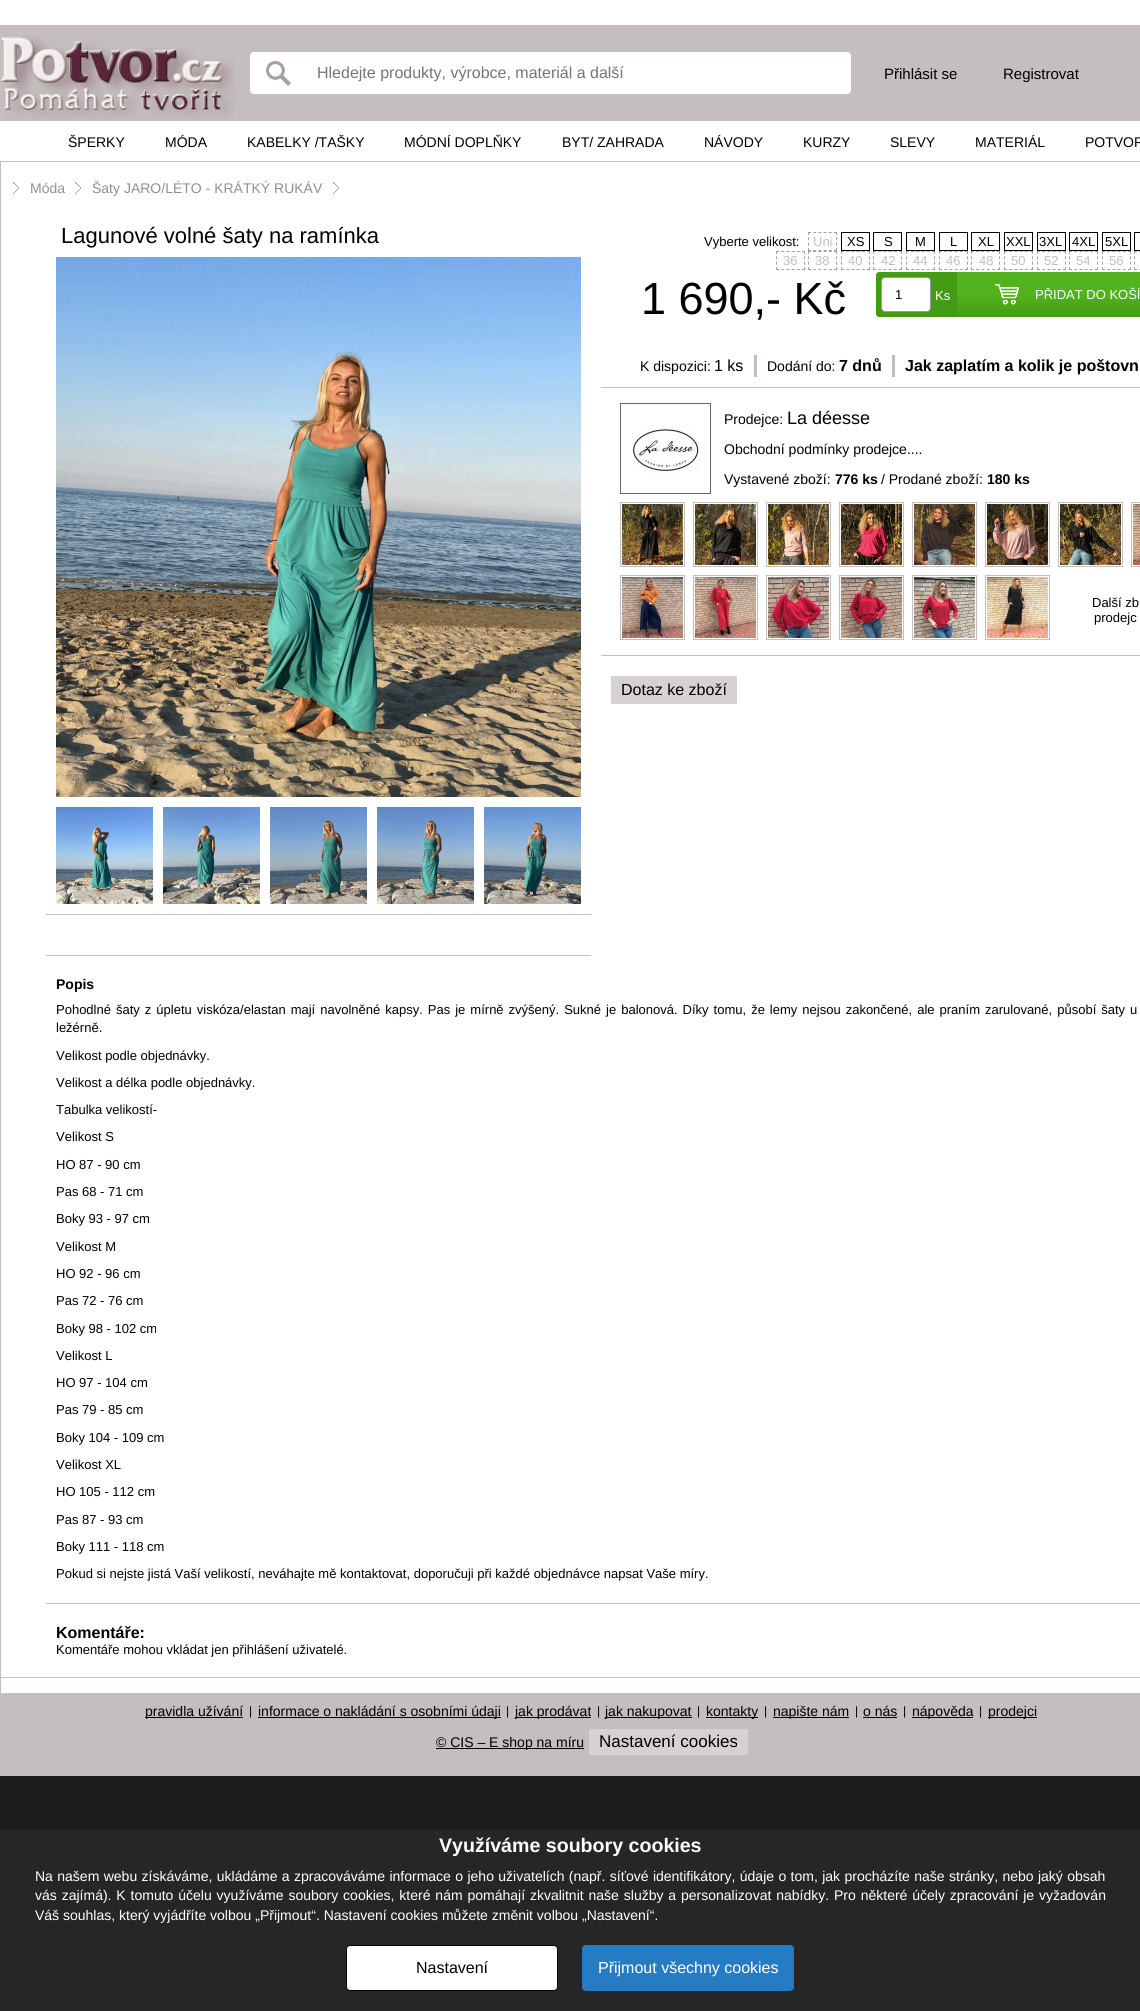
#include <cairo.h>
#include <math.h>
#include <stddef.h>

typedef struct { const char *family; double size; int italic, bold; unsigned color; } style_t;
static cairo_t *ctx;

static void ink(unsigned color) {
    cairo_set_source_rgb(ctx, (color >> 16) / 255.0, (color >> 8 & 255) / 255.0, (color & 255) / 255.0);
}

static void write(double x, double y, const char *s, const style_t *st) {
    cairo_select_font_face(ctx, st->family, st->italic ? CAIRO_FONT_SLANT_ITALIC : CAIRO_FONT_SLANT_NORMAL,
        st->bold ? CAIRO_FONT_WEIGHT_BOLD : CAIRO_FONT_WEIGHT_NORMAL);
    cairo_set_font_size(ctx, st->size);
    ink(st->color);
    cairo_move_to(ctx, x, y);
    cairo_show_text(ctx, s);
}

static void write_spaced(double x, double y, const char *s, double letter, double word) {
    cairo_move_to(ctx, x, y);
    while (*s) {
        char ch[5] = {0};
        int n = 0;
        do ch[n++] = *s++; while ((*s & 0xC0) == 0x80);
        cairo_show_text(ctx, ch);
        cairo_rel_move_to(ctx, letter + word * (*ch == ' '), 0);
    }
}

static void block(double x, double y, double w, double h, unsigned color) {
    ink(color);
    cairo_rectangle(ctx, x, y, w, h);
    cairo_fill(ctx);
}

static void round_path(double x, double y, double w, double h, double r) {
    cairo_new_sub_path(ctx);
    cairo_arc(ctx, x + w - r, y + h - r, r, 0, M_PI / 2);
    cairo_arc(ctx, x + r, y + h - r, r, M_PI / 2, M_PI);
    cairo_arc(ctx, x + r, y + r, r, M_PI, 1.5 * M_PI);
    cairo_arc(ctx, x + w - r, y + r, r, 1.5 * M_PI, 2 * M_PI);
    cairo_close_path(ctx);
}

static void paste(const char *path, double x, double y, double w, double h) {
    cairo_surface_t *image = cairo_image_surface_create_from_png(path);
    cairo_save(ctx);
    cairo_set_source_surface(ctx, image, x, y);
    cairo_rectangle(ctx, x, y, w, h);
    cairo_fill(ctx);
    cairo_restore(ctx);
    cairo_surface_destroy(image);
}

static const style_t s1 = {"Liberation Sans", 16, 0, 0, 0x757575};
static const style_t s2 = {"Arimo", 15, 0, 0, 0x000000};
static const style_t s3 = {"Arimo", 14, 0, 0, 0x000000};
static const style_t s4 = {"Arimo", 14, 0, 0, 0x918f8f};
static const style_t s5 = {"Arimo", 22, 0, 0, 0x000000};
static const style_t s6 = {"Arimo", 13, 0, 0, 0x000000};
static const style_t s7 = {"Arimo", 13, 0, 0, 0xc4bebf};
static const style_t s8 = {"Liberation Sans", 13, 0, 0, 0x000000};
static const style_t s9 = {"Arimo", 13, 0, 0, 0xffffff};
static const style_t s10 = {"Arimo", 45, 0, 0, 0x000000};
static const style_t s11 = {"Arimo", 16, 0, 0, 0x000000};
static const style_t s12 = {"Arimo", 16, 0, 1, 0x000000};
static const style_t s13 = {"Arimo", 18, 0, 0, 0x000000};
static const style_t s14 = {"Arimo", 14, 0, 1, 0x000000};
static const style_t s15 = {"Arimo", 12, 0, 0, 0x000000};
static const style_t s16 = {"Liberation Sans", 17, 0, 0, 0x000000};
static const style_t s17 = {"Arimo", 19.6, 0, 1, 0xffffff};
static const style_t s18 = {"Arimo", 14, 0, 0, 0xffffff};
static const style_t s19 = {"Arimo", 16, 0, 0, 0xffffff};

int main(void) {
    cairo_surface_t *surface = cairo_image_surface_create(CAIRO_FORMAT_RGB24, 1140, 2011);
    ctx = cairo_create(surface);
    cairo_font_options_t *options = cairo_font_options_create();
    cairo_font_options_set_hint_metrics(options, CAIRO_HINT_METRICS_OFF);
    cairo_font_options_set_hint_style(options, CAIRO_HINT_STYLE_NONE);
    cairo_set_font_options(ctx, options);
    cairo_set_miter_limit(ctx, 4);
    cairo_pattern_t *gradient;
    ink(0xffffff);
    cairo_paint(ctx);
    block(0, 1830, 1140, 181, 0x262626);
    block(0, 25, 1140, 96, 0xc4bebe);
    paste("pic1.png", 0, 36, 235, 84);
    ink(0xffffff);
    round_path(250, 52, 601, 42, 4);
    cairo_fill(ctx);
    paste("pic2.png", 266, 61, 25, 25);
    write(317, 78, "Hledejte produkty, výrobce, materiál a další", &s1);
    write(884, 79, "Přihlásit se", &s2);
    write(1003, 79, "Registrovat", &s2);
    write(68, 147, "ŠPERKY", &s3);
    write(165, 147, "MÓDA", &s3);
    write(247, 147, "KABELKY /TAŠKY", &s3);
    write(404, 147, "MÓDNÍ DOPLŇKY", &s3);
    write(562, 147, "BYT/ ZAHRADA", &s3);
    write(704, 147, "NÁVODY", &s3);
    write(803, 147, "KURZY", &s3);
    write(890, 147, "SLEVY", &s3);
    write(975, 147, "MATERIÁL", &s3);
    write(1085, 147, "POTVOR", &s3);
    cairo_rectangle(ctx, 0.5, 161.5, 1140, 1516);
    ink(0xc4bebe);
    cairo_set_line_width(ctx, 1);
    cairo_stroke(ctx);
    paste("pic3.png", 13, 182, 6, 12);
    write(30, 193, "Móda", &s4);
    paste("pic3.png", 75, 182, 6, 12);
    write(92, 193, "Šaty JARO/LÉTO - KRÁTKÝ RUKÁV", &s4);
    paste("pic3.png", 333, 182, 6, 12);
    write(61, 243, "Lagunové volné šaty na ramínka", &s5);
    paste("pic4.png", 56, 257, 525, 540);
    paste("pic5.png", 56, 807, 97, 97);
    paste("pic6.png", 163, 807, 97, 97);
    paste("pic7.png", 270, 807, 97, 97);
    paste("pic8.png", 377, 807, 97, 97);
    paste("pic9.png", 484, 807, 97, 97);
    block(46, 914, 545, 1, 0xc4bebe);
    block(46, 955, 545, 1, 0xc4bebe);
    block(601, 387, 539, 1, 0xc4bebe);
    write(704, 246, "Vyberte velikost:", &s6);
    cairo_new_path(ctx);
    cairo_move_to(ctx, 808, 232.5);
    cairo_line_to(ctx, 837, 232.5);
    ink(0xa5a1a0);
    cairo_set_dash(ctx, (double[]){3, 2.2}, 2, 0);
    cairo_stroke(ctx);
    cairo_new_path(ctx);
    cairo_move_to(ctx, 836.5, 232);
    cairo_line_to(ctx, 836.5, 251);
    cairo_set_dash(ctx, (double[]){3, 2.33}, 2, 0);
    cairo_stroke(ctx);
    cairo_new_path(ctx);
    cairo_move_to(ctx, 808, 250.5);
    cairo_line_to(ctx, 837, 250.5);
    cairo_set_dash(ctx, (double[]){3, 2.2}, 2, 0);
    cairo_stroke(ctx);
    cairo_new_path(ctx);
    cairo_move_to(ctx, 808.5, 232);
    cairo_line_to(ctx, 808.5, 251);
    cairo_set_dash(ctx, (double[]){3, 2.33}, 2, 0);
    cairo_stroke(ctx);
    write(813, 246, "Uni", &s7);
    cairo_rectangle(ctx, 841.5, 232.5, 28, 18);
    ink(0x000000);
    cairo_set_dash(ctx, NULL, 0, 0);
    cairo_stroke(ctx);
    write(847, 246, "XS", &s6);
    cairo_rectangle(ctx, 873.5, 232.5, 28, 18);
    cairo_stroke(ctx);
    write(884, 246, "S", &s6);
    cairo_rectangle(ctx, 906.5, 232.5, 28, 18);
    cairo_stroke(ctx);
    write(915, 246, "M", &s6);
    cairo_rectangle(ctx, 939.5, 232.5, 28, 18);
    cairo_stroke(ctx);
    write(950, 246, "L", &s6);
    cairo_rectangle(ctx, 971.5, 232.5, 28, 18);
    cairo_stroke(ctx);
    write(978, 246, "XL", &s6);
    cairo_rectangle(ctx, 1004.5, 232.5, 28, 18);
    cairo_stroke(ctx);
    write(1006, 246, "XXL", &s6);
    cairo_rectangle(ctx, 1037.5, 232.5, 28, 18);
    cairo_stroke(ctx);
    write(1039, 246, "3XL", &s6);
    cairo_rectangle(ctx, 1069.5, 232.5, 28, 18);
    cairo_stroke(ctx);
    write(1072, 246, "4XL", &s6);
    cairo_rectangle(ctx, 1102.5, 232.5, 28, 18);
    cairo_stroke(ctx);
    write(1105, 246, "5XL", &s6);
    cairo_rectangle(ctx, 1134.5, 232.5, 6, 18);
    cairo_stroke(ctx);
    cairo_new_path(ctx);
    cairo_move_to(ctx, 776, 251.5);
    cairo_line_to(ctx, 805, 251.5);
    ink(0xa5a1a0);
    cairo_set_dash(ctx, (double[]){3, 2.2}, 2, 0);
    cairo_stroke(ctx);
    cairo_new_path(ctx);
    cairo_move_to(ctx, 804.5, 251);
    cairo_line_to(ctx, 804.5, 270);
    cairo_set_dash(ctx, (double[]){3, 2.33}, 2, 0);
    cairo_stroke(ctx);
    cairo_new_path(ctx);
    cairo_move_to(ctx, 776, 269.5);
    cairo_line_to(ctx, 805, 269.5);
    cairo_set_dash(ctx, (double[]){3, 2.2}, 2, 0);
    cairo_stroke(ctx);
    cairo_new_path(ctx);
    cairo_move_to(ctx, 776.5, 251);
    cairo_line_to(ctx, 776.5, 270);
    cairo_set_dash(ctx, (double[]){3, 2.33}, 2, 0);
    cairo_stroke(ctx);
    write(783, 265, "36", &s7);
    cairo_new_path(ctx);
    cairo_move_to(ctx, 808, 251.5);
    cairo_line_to(ctx, 837, 251.5);
    ink(0xa5a1a0);
    cairo_set_dash(ctx, (double[]){3, 2.2}, 2, 0);
    cairo_stroke(ctx);
    cairo_new_path(ctx);
    cairo_move_to(ctx, 836.5, 251);
    cairo_line_to(ctx, 836.5, 270);
    cairo_set_dash(ctx, (double[]){3, 2.33}, 2, 0);
    cairo_stroke(ctx);
    cairo_new_path(ctx);
    cairo_move_to(ctx, 808, 269.5);
    cairo_line_to(ctx, 837, 269.5);
    cairo_set_dash(ctx, (double[]){3, 2.2}, 2, 0);
    cairo_stroke(ctx);
    cairo_new_path(ctx);
    cairo_move_to(ctx, 808.5, 251);
    cairo_line_to(ctx, 808.5, 270);
    cairo_set_dash(ctx, (double[]){3, 2.33}, 2, 0);
    cairo_stroke(ctx);
    write(815, 265, "38", &s7);
    cairo_new_path(ctx);
    cairo_move_to(ctx, 841, 251.5);
    cairo_line_to(ctx, 870, 251.5);
    ink(0xa5a1a0);
    cairo_set_dash(ctx, (double[]){3, 2.2}, 2, 0);
    cairo_stroke(ctx);
    cairo_new_path(ctx);
    cairo_move_to(ctx, 869.5, 251);
    cairo_line_to(ctx, 869.5, 270);
    cairo_set_dash(ctx, (double[]){3, 2.33}, 2, 0);
    cairo_stroke(ctx);
    cairo_new_path(ctx);
    cairo_move_to(ctx, 841, 269.5);
    cairo_line_to(ctx, 870, 269.5);
    cairo_set_dash(ctx, (double[]){3, 2.2}, 2, 0);
    cairo_stroke(ctx);
    cairo_new_path(ctx);
    cairo_move_to(ctx, 841.5, 251);
    cairo_line_to(ctx, 841.5, 270);
    cairo_set_dash(ctx, (double[]){3, 2.33}, 2, 0);
    cairo_stroke(ctx);
    write(848, 265, "40", &s7);
    cairo_new_path(ctx);
    cairo_move_to(ctx, 873, 251.5);
    cairo_line_to(ctx, 902, 251.5);
    ink(0xa5a1a0);
    cairo_set_dash(ctx, (double[]){3, 2.2}, 2, 0);
    cairo_stroke(ctx);
    cairo_new_path(ctx);
    cairo_move_to(ctx, 901.5, 251);
    cairo_line_to(ctx, 901.5, 270);
    cairo_set_dash(ctx, (double[]){3, 2.33}, 2, 0);
    cairo_stroke(ctx);
    cairo_new_path(ctx);
    cairo_move_to(ctx, 873, 269.5);
    cairo_line_to(ctx, 902, 269.5);
    cairo_set_dash(ctx, (double[]){3, 2.2}, 2, 0);
    cairo_stroke(ctx);
    cairo_new_path(ctx);
    cairo_move_to(ctx, 873.5, 251);
    cairo_line_to(ctx, 873.5, 270);
    cairo_set_dash(ctx, (double[]){3, 2.33}, 2, 0);
    cairo_stroke(ctx);
    write(881, 265, "42", &s7);
    cairo_new_path(ctx);
    cairo_move_to(ctx, 906, 251.5);
    cairo_line_to(ctx, 935, 251.5);
    ink(0xa5a1a0);
    cairo_set_dash(ctx, (double[]){3, 2.2}, 2, 0);
    cairo_stroke(ctx);
    cairo_new_path(ctx);
    cairo_move_to(ctx, 934.5, 251);
    cairo_line_to(ctx, 934.5, 270);
    cairo_set_dash(ctx, (double[]){3, 2.33}, 2, 0);
    cairo_stroke(ctx);
    cairo_new_path(ctx);
    cairo_move_to(ctx, 906, 269.5);
    cairo_line_to(ctx, 935, 269.5);
    cairo_set_dash(ctx, (double[]){3, 2.2}, 2, 0);
    cairo_stroke(ctx);
    cairo_new_path(ctx);
    cairo_move_to(ctx, 906.5, 251);
    cairo_line_to(ctx, 906.5, 270);
    cairo_set_dash(ctx, (double[]){3, 2.33}, 2, 0);
    cairo_stroke(ctx);
    write(913, 265, "44", &s7);
    cairo_new_path(ctx);
    cairo_move_to(ctx, 939, 251.5);
    cairo_line_to(ctx, 968, 251.5);
    ink(0xa5a1a0);
    cairo_set_dash(ctx, (double[]){3, 2.2}, 2, 0);
    cairo_stroke(ctx);
    cairo_new_path(ctx);
    cairo_move_to(ctx, 967.5, 251);
    cairo_line_to(ctx, 967.5, 270);
    cairo_set_dash(ctx, (double[]){3, 2.33}, 2, 0);
    cairo_stroke(ctx);
    cairo_new_path(ctx);
    cairo_move_to(ctx, 939, 269.5);
    cairo_line_to(ctx, 968, 269.5);
    cairo_set_dash(ctx, (double[]){3, 2.2}, 2, 0);
    cairo_stroke(ctx);
    cairo_new_path(ctx);
    cairo_move_to(ctx, 939.5, 251);
    cairo_line_to(ctx, 939.5, 270);
    cairo_set_dash(ctx, (double[]){3, 2.33}, 2, 0);
    cairo_stroke(ctx);
    write(946, 265, "46", &s7);
    cairo_new_path(ctx);
    cairo_move_to(ctx, 971, 251.5);
    cairo_line_to(ctx, 1000, 251.5);
    ink(0xa5a1a0);
    cairo_set_dash(ctx, (double[]){3, 2.2}, 2, 0);
    cairo_stroke(ctx);
    cairo_new_path(ctx);
    cairo_move_to(ctx, 999.5, 251);
    cairo_line_to(ctx, 999.5, 270);
    cairo_set_dash(ctx, (double[]){3, 2.33}, 2, 0);
    cairo_stroke(ctx);
    cairo_new_path(ctx);
    cairo_move_to(ctx, 971, 269.5);
    cairo_line_to(ctx, 1000, 269.5);
    cairo_set_dash(ctx, (double[]){3, 2.2}, 2, 0);
    cairo_stroke(ctx);
    cairo_new_path(ctx);
    cairo_move_to(ctx, 971.5, 251);
    cairo_line_to(ctx, 971.5, 270);
    cairo_set_dash(ctx, (double[]){3, 2.33}, 2, 0);
    cairo_stroke(ctx);
    write(979, 265, "48", &s7);
    cairo_new_path(ctx);
    cairo_move_to(ctx, 1004, 251.5);
    cairo_line_to(ctx, 1033, 251.5);
    ink(0xa5a1a0);
    cairo_set_dash(ctx, (double[]){3, 2.2}, 2, 0);
    cairo_stroke(ctx);
    cairo_new_path(ctx);
    cairo_move_to(ctx, 1032.5, 251);
    cairo_line_to(ctx, 1032.5, 270);
    cairo_set_dash(ctx, (double[]){3, 2.33}, 2, 0);
    cairo_stroke(ctx);
    cairo_new_path(ctx);
    cairo_move_to(ctx, 1004, 269.5);
    cairo_line_to(ctx, 1033, 269.5);
    cairo_set_dash(ctx, (double[]){3, 2.2}, 2, 0);
    cairo_stroke(ctx);
    cairo_new_path(ctx);
    cairo_move_to(ctx, 1004.5, 251);
    cairo_line_to(ctx, 1004.5, 270);
    cairo_set_dash(ctx, (double[]){3, 2.33}, 2, 0);
    cairo_stroke(ctx);
    write(1011, 265, "50", &s7);
    cairo_new_path(ctx);
    cairo_move_to(ctx, 1037, 251.5);
    cairo_line_to(ctx, 1066, 251.5);
    ink(0xa5a1a0);
    cairo_set_dash(ctx, (double[]){3, 2.2}, 2, 0);
    cairo_stroke(ctx);
    cairo_new_path(ctx);
    cairo_move_to(ctx, 1065.5, 251);
    cairo_line_to(ctx, 1065.5, 270);
    cairo_set_dash(ctx, (double[]){3, 2.33}, 2, 0);
    cairo_stroke(ctx);
    cairo_new_path(ctx);
    cairo_move_to(ctx, 1037, 269.5);
    cairo_line_to(ctx, 1066, 269.5);
    cairo_set_dash(ctx, (double[]){3, 2.2}, 2, 0);
    cairo_stroke(ctx);
    cairo_new_path(ctx);
    cairo_move_to(ctx, 1037.5, 251);
    cairo_line_to(ctx, 1037.5, 270);
    cairo_set_dash(ctx, (double[]){3, 2.33}, 2, 0);
    cairo_stroke(ctx);
    write(1044, 265, "52", &s7);
    cairo_new_path(ctx);
    cairo_move_to(ctx, 1069, 251.5);
    cairo_line_to(ctx, 1098, 251.5);
    ink(0xa5a1a0);
    cairo_set_dash(ctx, (double[]){3, 2.2}, 2, 0);
    cairo_stroke(ctx);
    cairo_new_path(ctx);
    cairo_move_to(ctx, 1097.5, 251);
    cairo_line_to(ctx, 1097.5, 270);
    cairo_set_dash(ctx, (double[]){3, 2.33}, 2, 0);
    cairo_stroke(ctx);
    cairo_new_path(ctx);
    cairo_move_to(ctx, 1069, 269.5);
    cairo_line_to(ctx, 1098, 269.5);
    cairo_set_dash(ctx, (double[]){3, 2.2}, 2, 0);
    cairo_stroke(ctx);
    cairo_new_path(ctx);
    cairo_move_to(ctx, 1069.5, 251);
    cairo_line_to(ctx, 1069.5, 270);
    cairo_set_dash(ctx, (double[]){3, 2.33}, 2, 0);
    cairo_stroke(ctx);
    write(1076, 265, "54", &s7);
    cairo_new_path(ctx);
    cairo_move_to(ctx, 1102, 251.5);
    cairo_line_to(ctx, 1131, 251.5);
    ink(0xa5a1a0);
    cairo_set_dash(ctx, (double[]){3, 2.2}, 2, 0);
    cairo_stroke(ctx);
    cairo_new_path(ctx);
    cairo_move_to(ctx, 1130.5, 251);
    cairo_line_to(ctx, 1130.5, 270);
    cairo_set_dash(ctx, (double[]){3, 2.33}, 2, 0);
    cairo_stroke(ctx);
    cairo_new_path(ctx);
    cairo_move_to(ctx, 1102, 269.5);
    cairo_line_to(ctx, 1131, 269.5);
    cairo_set_dash(ctx, (double[]){3, 2.2}, 2, 0);
    cairo_stroke(ctx);
    cairo_new_path(ctx);
    cairo_move_to(ctx, 1102.5, 251);
    cairo_line_to(ctx, 1102.5, 270);
    cairo_set_dash(ctx, (double[]){3, 2.33}, 2, 0);
    cairo_stroke(ctx);
    write(1109, 265, "56", &s7);
    cairo_new_path(ctx);
    cairo_move_to(ctx, 1134, 251.5);
    cairo_line_to(ctx, 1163, 251.5);
    cairo_move_to(ctx, 1134, 269.5);
    cairo_line_to(ctx, 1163, 269.5);
    ink(0xa5a1a0);
    cairo_set_dash(ctx, (double[]){3, 2.2}, 2, 0);
    cairo_stroke(ctx);
    cairo_new_path(ctx);
    cairo_move_to(ctx, 1134.5, 251);
    cairo_line_to(ctx, 1134.5, 270);
    cairo_set_dash(ctx, (double[]){3, 2.33}, 2, 0);
    cairo_stroke(ctx);
    ink(0x449b14);
    cairo_new_path(ctx);
    cairo_move_to(ctx, 879, 272);
    cairo_line_to(ctx, 957, 272);
    cairo_line_to(ctx, 957, 317);
    cairo_line_to(ctx, 879, 317);
    cairo_curve_to(ctx, 877.5, 317, 876, 315.5, 876, 314);
    cairo_line_to(ctx, 876, 275);
    cairo_curve_to(ctx, 876, 273.5, 877.5, 272, 879, 272);
    cairo_close_path(ctx);
    cairo_fill(ctx);
    ink(0xffffff);
    round_path(881.5, 277.5, 49, 34, 3.5);
    cairo_fill_preserve(ctx);
    ink(0x999999);
    cairo_set_dash(ctx, NULL, 0, 0);
    cairo_stroke(ctx);
    write(895, 299, "1", &s8);
    write(935, 300, "Ks", &s9);
    gradient = cairo_pattern_create_linear(1077, 272, 1077, 317);
    cairo_pattern_add_color_stop_rgba(gradient, 0.47, 0.325, 0.702, 0.122, 1);
    cairo_pattern_add_color_stop_rgba(gradient, 1, 0.267, 0.608, 0.078, 1);
    cairo_set_source(ctx, gradient);
    cairo_pattern_destroy(gradient);
    cairo_rectangle(ctx, 957, 272, 183, 45);
    cairo_fill(ctx);
    paste("pic10.png", 995, 284, 24, 21);
    write(1035, 299, "PŘIDAT DO KOŠÍ", &s9);
    write(641, 314, "1 690,- Kč", &s10);
    write(640, 371, "K dispozici:", &s3);
    write(714, 371, "1 ks", &s11);
    block(754, 355, 3, 22, 0xc4bebe);
    write(767, 371, "Dodání do:", &s3);
    write(839, 371, "7 dnů", &s12);
    block(892, 355, 3, 22, 0xc4bebe);
    write(905, 371, "Jak zaplatím a kolik je poštovn", &s12);
    block(601, 655, 539, 1, 0xc4bebe);
    cairo_rectangle(ctx, 620.5, 403.5, 90, 90);
    ink(0x666666);
    cairo_stroke(ctx);
    paste("pic11.png", 633, 429, 68, 45);
    write(724, 424, "Prodejce:", &s3);
    write(787, 424, "La déesse", &s13);
    write(724, 454, "Obchodní podmínky prodejce....", &s3);
    write(724, 484, "Vystavené zboží:", &s3);
    write(835, 484, "776 ks", &s14);
    write(881, 484, "/ Prodané zboží:", &s3);
    write(987, 484, "180 ks", &s14);
    cairo_rectangle(ctx, 620.5, 502.5, 64, 64);
    ink(0xc4bebe);
    cairo_stroke(ctx);
    paste("pic12.png", 622, 504, 61, 61);
    cairo_rectangle(ctx, 693.5, 502.5, 64, 64);
    cairo_stroke(ctx);
    paste("pic13.png", 695, 504, 61, 61);
    cairo_rectangle(ctx, 766.5, 502.5, 64, 64);
    cairo_stroke(ctx);
    paste("pic14.png", 768, 504, 61, 61);
    cairo_rectangle(ctx, 839.5, 502.5, 64, 64);
    cairo_stroke(ctx);
    paste("pic15.png", 841, 504, 61, 61);
    cairo_rectangle(ctx, 912.5, 502.5, 64, 64);
    cairo_stroke(ctx);
    paste("pic16.png", 914, 504, 61, 61);
    cairo_rectangle(ctx, 985.5, 502.5, 64, 64);
    cairo_stroke(ctx);
    paste("pic17.png", 987, 504, 61, 61);
    cairo_rectangle(ctx, 1058.5, 502.5, 64, 64);
    cairo_stroke(ctx);
    paste("pic18.png", 1060, 504, 61, 61);
    cairo_rectangle(ctx, 1131.5, 502.5, 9, 64);
    cairo_stroke(ctx);
    paste("pic19.png", 1133, 504, 7, 61);
    cairo_rectangle(ctx, 620.5, 575.5, 64, 64);
    cairo_stroke(ctx);
    paste("pic20.png", 622, 577, 61, 61);
    cairo_rectangle(ctx, 693.5, 575.5, 64, 64);
    cairo_stroke(ctx);
    paste("pic21.png", 695, 577, 61, 61);
    cairo_rectangle(ctx, 766.5, 575.5, 64, 64);
    cairo_stroke(ctx);
    paste("pic22.png", 768, 577, 61, 61);
    cairo_rectangle(ctx, 839.5, 575.5, 64, 64);
    cairo_stroke(ctx);
    paste("pic23.png", 841, 577, 61, 61);
    cairo_rectangle(ctx, 912.5, 575.5, 64, 64);
    cairo_stroke(ctx);
    paste("pic24.png", 914, 577, 61, 61);
    cairo_rectangle(ctx, 985.5, 575.5, 64, 64);
    cairo_stroke(ctx);
    paste("pic25.png", 987, 577, 61, 61);
    write(1092, 607, "Další zb", &s6);
    write(1094, 622, "prodejc", &s6);
    block(611, 676, 126, 28, 0xd5d2d1);
    write(621, 695, "Dotaz ke zboží", &s11);
    block(46, 1603, 1094, 1, 0xc4bebe);
    write(56, 989, "Popis", &s14);
    cairo_select_font_face(ctx, "Arimo", CAIRO_FONT_SLANT_NORMAL, CAIRO_FONT_WEIGHT_NORMAL);
    cairo_set_font_size(ctx, 13);
    write_spaced(56, 1014, "Pohodlné šaty z úpletu viskóza/elastan mají navolněné kapsy. Pas je mírně zvýšený. Sukné je balonová. Díky tomu, že lemy nejsou zakončené, ale praním zarulované, působí šaty u", 0, 1.4);
    write(56, 1032, "ležérně.", &s6);
    write(56, 1060, "Velikost podle objednávky.", &s6);
    write(56, 1087, "Velikost a délka podle objednávky.", &s6);
    write(56, 1114, "Tabulka velikostí-", &s6);
    write(56, 1141, "Velikost S", &s6);
    write(56, 1169, "HO 87 - 90 cm", &s6);
    write(56, 1196, "Pas 68 - 71 cm", &s6);
    write(56, 1223, "Boky 93 - 97 cm", &s6);
    write(56, 1251, "Velikost M", &s6);
    write(56, 1278, "HO 92 - 96 cm", &s6);
    write(56, 1305, "Pas 72 - 76 cm", &s6);
    write(56, 1333, "Boky 98 - 102 cm", &s6);
    write(56, 1360, "Velikost L", &s6);
    write(56, 1387, "HO 97 - 104 cm", &s6);
    write(56, 1414, "Pas 79 - 85 cm", &s6);
    write(56, 1442, "Boky 104 - 109 cm", &s6);
    write(56, 1469, "Velikost XL", &s6);
    write(56, 1496, "HO 105 - 112 cm", &s6);
    write(56, 1524, "Pas 87 - 93 cm", &s6);
    write(56, 1551, "Boky 111 - 118 cm", &s6);
    write(56, 1578, "Pokud si nejste jistá Vaší velikostí, neváhajte mě kontaktovat, doporučuji při každé objednávce napsat Vaše míry.", &s6);
    write(56, 1638, "Komentáře:", &s12);
    write(56, 1654, "Komentáře mohou vkládat jen přihlášení uživatelé.", &s6);
    block(0, 1693, 1140, 83, 0xc4bebe);
    block(0, 1776, 1140, 54, 0x1d1d1d);
    block(0, 1678, 1, 15, 0xc4bebe);
    block(145, 1717, 98, 1, 0x000000);
    write(145, 1716, "pravidla užívání", &s3);
    write(249, 1715, "|", &s15);
    block(258, 1717, 243, 1, 0x000000);
    write(258, 1716, "informace o nakládání s osobními údaji", &s3);
    write(506, 1715, "|", &s15);
    block(515, 1717, 76, 1, 0x000000);
    write(515, 1716, "jak prodávat", &s3);
    write(597, 1715, "|", &s15);
    block(605, 1717, 87, 1, 0x000000);
    write(605, 1716, "jak nakupovat", &s3);
    write(697, 1715, "|", &s15);
    block(706, 1717, 52, 1, 0x000000);
    write(706, 1716, "kontakty", &s3);
    write(764, 1715, "|", &s15);
    block(773, 1717, 76, 1, 0x000000);
    write(773, 1716, "napište nám", &s3);
    write(855, 1715, "|", &s15);
    write(863, 1716, "o nás", &s3);
    block(863, 1717, 34, 1, 0x000000);
    write(903, 1715, "|", &s15);
    block(912, 1717, 61, 1, 0x000000);
    write(912, 1716, "nápověda", &s3);
    write(979, 1715, "|", &s15);
    block(988, 1717, 49, 1, 0x000000);
    write(988, 1716, "prodejci", &s3);
    block(436, 1748, 148, 1, 0x000000);
    write(436, 1747, "© CIS – E shop na míru", &s3);
    block(589, 1729, 159, 26, 0xd5d2d1);
    write(599, 1747, "Nastavení cookies", &s16);
    write(439, 1852, "Využíváme soubory cookies", &s17);
    cairo_select_font_face(ctx, "Arimo", CAIRO_FONT_SLANT_NORMAL, CAIRO_FONT_WEIGHT_NORMAL);
    cairo_set_font_size(ctx, 14);
    write_spaced(35, 1881, "Na našem webu získáváme, ukládáme a zpracováváme informace o jeho uživatelích (např. síťové identifikátory, údaje o tom, jak procházíte naše stránky, nebo jaký obsah", 0, 0.5);
    write_spaced(35, 1900, "vás zajímá). K tomuto účelu využíváme soubory cookies, které nám pomáhají zkvalitnit naše služby a personalizovat nabídky. Pro některé účely zpracování je vyžadován", 0, 1);
    write(35, 1920, "Váš souhlas, který vyjádříte volbou „Přijmout“. Nastavení cookies můžete změnit volbou „Nastavení“.", &s18);
    round_path(346.5, 1945.5, 211, 45, 3.5);
    cairo_fill_preserve(ctx);
    ink(0x000000);
    cairo_stroke(ctx);
    write(416, 1973, "Nastavení", &s11);
    ink(0x267cc2);
    round_path(582.5, 1945.5, 211, 45, 3.5);
    cairo_fill_preserve(ctx);
    cairo_stroke(ctx);
    write(598, 1973, "Přijmout všechny cookies", &s19);
    cairo_surface_write_to_png(surface, "screenshot.png");
    cairo_font_options_destroy(options);
    cairo_destroy(ctx);
    cairo_surface_destroy(surface);
    return 0;
}
